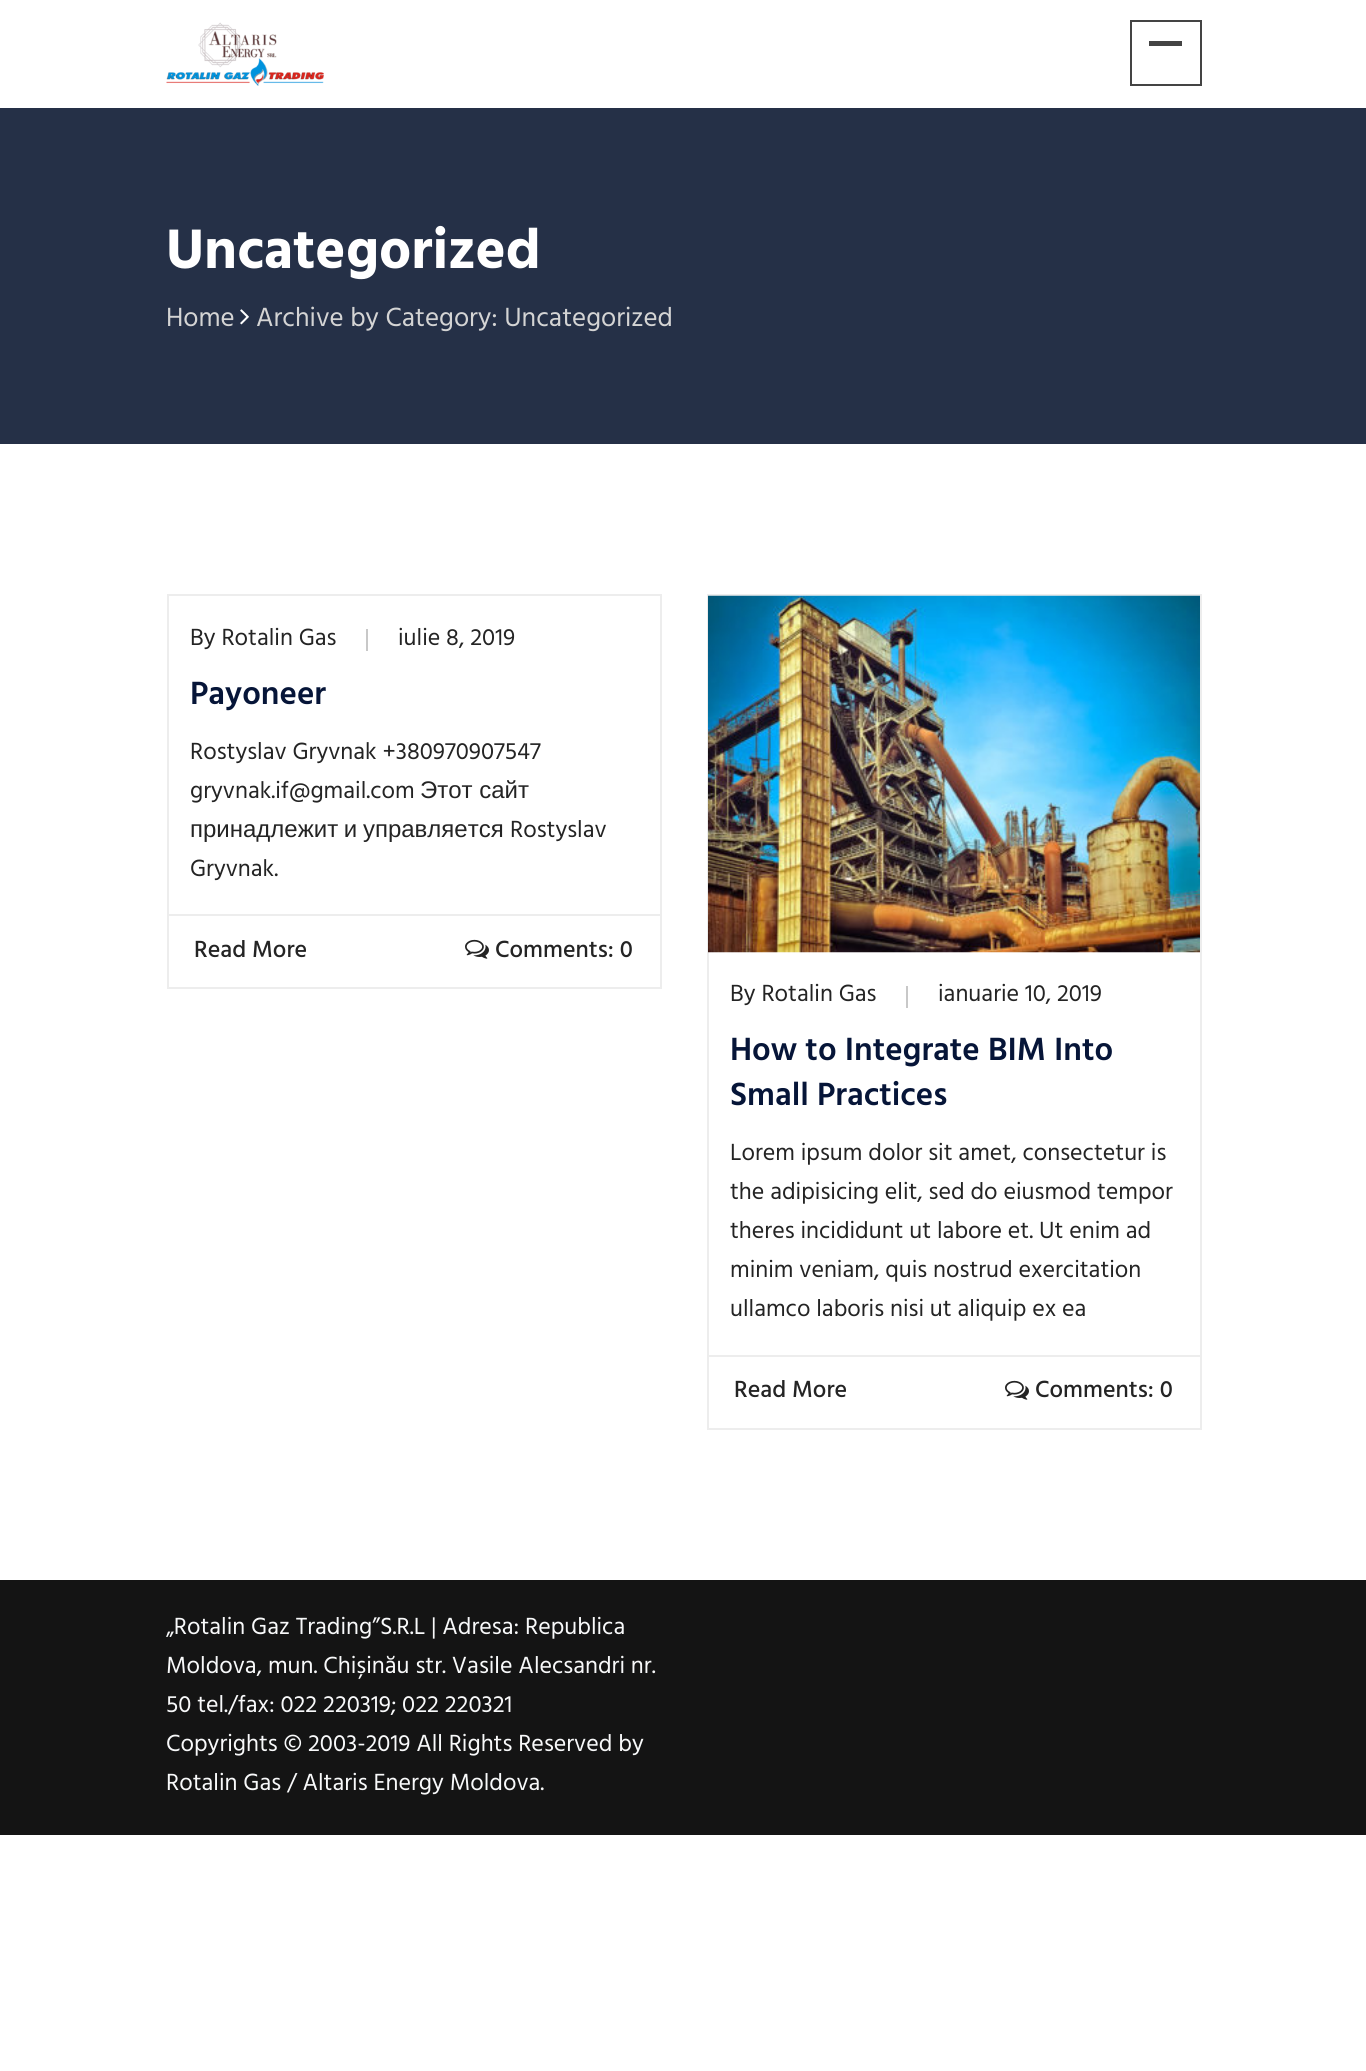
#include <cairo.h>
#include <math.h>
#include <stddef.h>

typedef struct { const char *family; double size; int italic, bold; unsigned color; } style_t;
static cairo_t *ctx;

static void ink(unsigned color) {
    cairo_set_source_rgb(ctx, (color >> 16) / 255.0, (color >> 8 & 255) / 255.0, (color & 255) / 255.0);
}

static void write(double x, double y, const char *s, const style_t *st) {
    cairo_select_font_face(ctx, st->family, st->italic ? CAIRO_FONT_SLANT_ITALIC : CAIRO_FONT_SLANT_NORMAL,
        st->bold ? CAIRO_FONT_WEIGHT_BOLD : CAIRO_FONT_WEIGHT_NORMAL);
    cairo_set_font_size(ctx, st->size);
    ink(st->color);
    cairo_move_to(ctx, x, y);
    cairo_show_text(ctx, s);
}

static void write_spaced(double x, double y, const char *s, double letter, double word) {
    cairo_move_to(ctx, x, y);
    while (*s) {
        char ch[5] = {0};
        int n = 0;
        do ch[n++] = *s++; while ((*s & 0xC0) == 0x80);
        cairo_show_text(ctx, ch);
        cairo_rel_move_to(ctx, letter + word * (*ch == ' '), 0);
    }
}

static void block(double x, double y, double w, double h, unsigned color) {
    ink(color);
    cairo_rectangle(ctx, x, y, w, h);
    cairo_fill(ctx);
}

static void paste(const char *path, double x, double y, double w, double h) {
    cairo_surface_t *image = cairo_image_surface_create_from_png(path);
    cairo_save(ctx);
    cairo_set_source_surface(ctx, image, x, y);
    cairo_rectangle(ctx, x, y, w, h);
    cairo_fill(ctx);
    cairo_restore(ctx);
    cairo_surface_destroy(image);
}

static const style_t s1 = {"Hind", 57, 0, 1, 0xffffff};
static const style_t s2 = {"Hind", 27, 0, 0, 0xd4d4d4};
static const style_t s3 = {"Hind", 24, 0, 0, 0x242424};
static const style_t s4 = {"Hind SemiBold", 33, 0, 0, 0x061538};
static const style_t s5 = {"Liberation Sans", 24, 0, 0, 0x242424};
static const style_t s6 = {"Hind Medium", 24, 0, 0, 0x242424};
static const style_t s7 = {"Hind", 24, 0, 0, 0xf8f9fa};

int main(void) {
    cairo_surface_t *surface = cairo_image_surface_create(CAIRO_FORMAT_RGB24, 1366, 2071);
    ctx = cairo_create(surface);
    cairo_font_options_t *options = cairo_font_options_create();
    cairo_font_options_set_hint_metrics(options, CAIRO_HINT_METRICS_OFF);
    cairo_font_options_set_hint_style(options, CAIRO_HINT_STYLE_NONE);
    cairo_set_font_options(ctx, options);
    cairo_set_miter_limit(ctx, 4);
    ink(0xffffff);
    cairo_paint(ctx);
    paste("pic1.png", 166, 22, 158, 64);
    cairo_rectangle(ctx, 1131, 21, 70, 64);
    ink(0x444444);
    cairo_stroke(ctx);
    block(1149, 41, 33, 5, 0x444444);
    block(0, 108, 1366, 336, 0x253047);
    write(166, 268, "Uncategorized", &s1);
    write(166, 326, "Home", &s2);
    paste("pic2.png", 240, 309, 9, 16);
    write(256, 326, "Archive by Category: Uncategorized", &s2);
    cairo_rectangle(ctx, 168, 595, 493, 393);
    ink(0xededed);
    cairo_stroke(ctx);
    block(366, 629, 2, 22, 0xc8c8c8);
    write(190, 645, "By Rotalin Gas", &s3);
    write(398, 645, "iulie 8, 2019", &s3);
    write(190, 704, "Payoneer", &s4);
    write(190, 759, "Rostyslav Gryvnak +380970907547", &s3);
    write(190, 798, "gryvnak.if@gmail.com", &s3);
    write(420, 798, "Этот сайт", &s5);
    write_spaced(190, 837, "принадлежит и управляется", 0, -1);
    write(510, 837, "Rostyslav", &s3);
    write(190, 876, "Gryvnak.", &s3);
    block(168, 914, 492, 2, 0xededed);
    write(194, 957, "Read More", &s6);
    paste("pic3.png", 465, 939, 24, 20);
    write(495, 957, "Comments: 0", &s6);
    cairo_rectangle(ctx, 708, 595, 493, 834);
    ink(0xededed);
    cairo_stroke(ctx);
    paste("pic4.png", 708, 595, 492, 358);
    block(906, 986, 2, 22, 0xc8c8c8);
    write(730, 1001, "By Rotalin Gas", &s3);
    write(938, 1001, "ianuarie 10, 2019", &s3);
    write(730, 1060, "How to Integrate BIM Into", &s4);
    write(730, 1105, "Small Practices", &s4);
    write(730, 1160, "Lorem ipsum dolor sit amet, consectetur is", &s3);
    write(730, 1199, "the adipisicing elit, sed do eiusmod tempor", &s3);
    write(730, 1238, "theres incididunt ut labore et. Ut enim ad", &s3);
    write(730, 1277, "minim veniam, quis nostrud exercitation", &s3);
    write(730, 1316, "ullamco laboris nisi ut aliquip ex ea", &s3);
    block(708, 1355, 492, 2, 0xededed);
    write(734, 1397, "Read More", &s6);
    paste("pic3.png", 1005, 1380, 24, 20);
    write(1035, 1397, "Comments: 0", &s6);
    block(0, 1580, 1366, 255, 0x141414);
    write(166, 1634, "„Rotalin Gaz Trading”S.R.L | Adresa: Republica", &s7);
    write(166, 1673, "Moldova, mun. Chișinău str. Vasile Alecsandri nr.", &s7);
    write(166, 1712, "50 tel./fax: 022 220319; 022 220321", &s7);
    write(166, 1751, "Copyrights © 2003-2019 All Rights Reserved by", &s7);
    write(166, 1790, "Rotalin Gas / Altaris Energy Moldova.", &s7);
    cairo_surface_write_to_png(surface, "screenshot.png");
    cairo_font_options_destroy(options);
    cairo_destroy(ctx);
    cairo_surface_destroy(surface);
    return 0;
}
